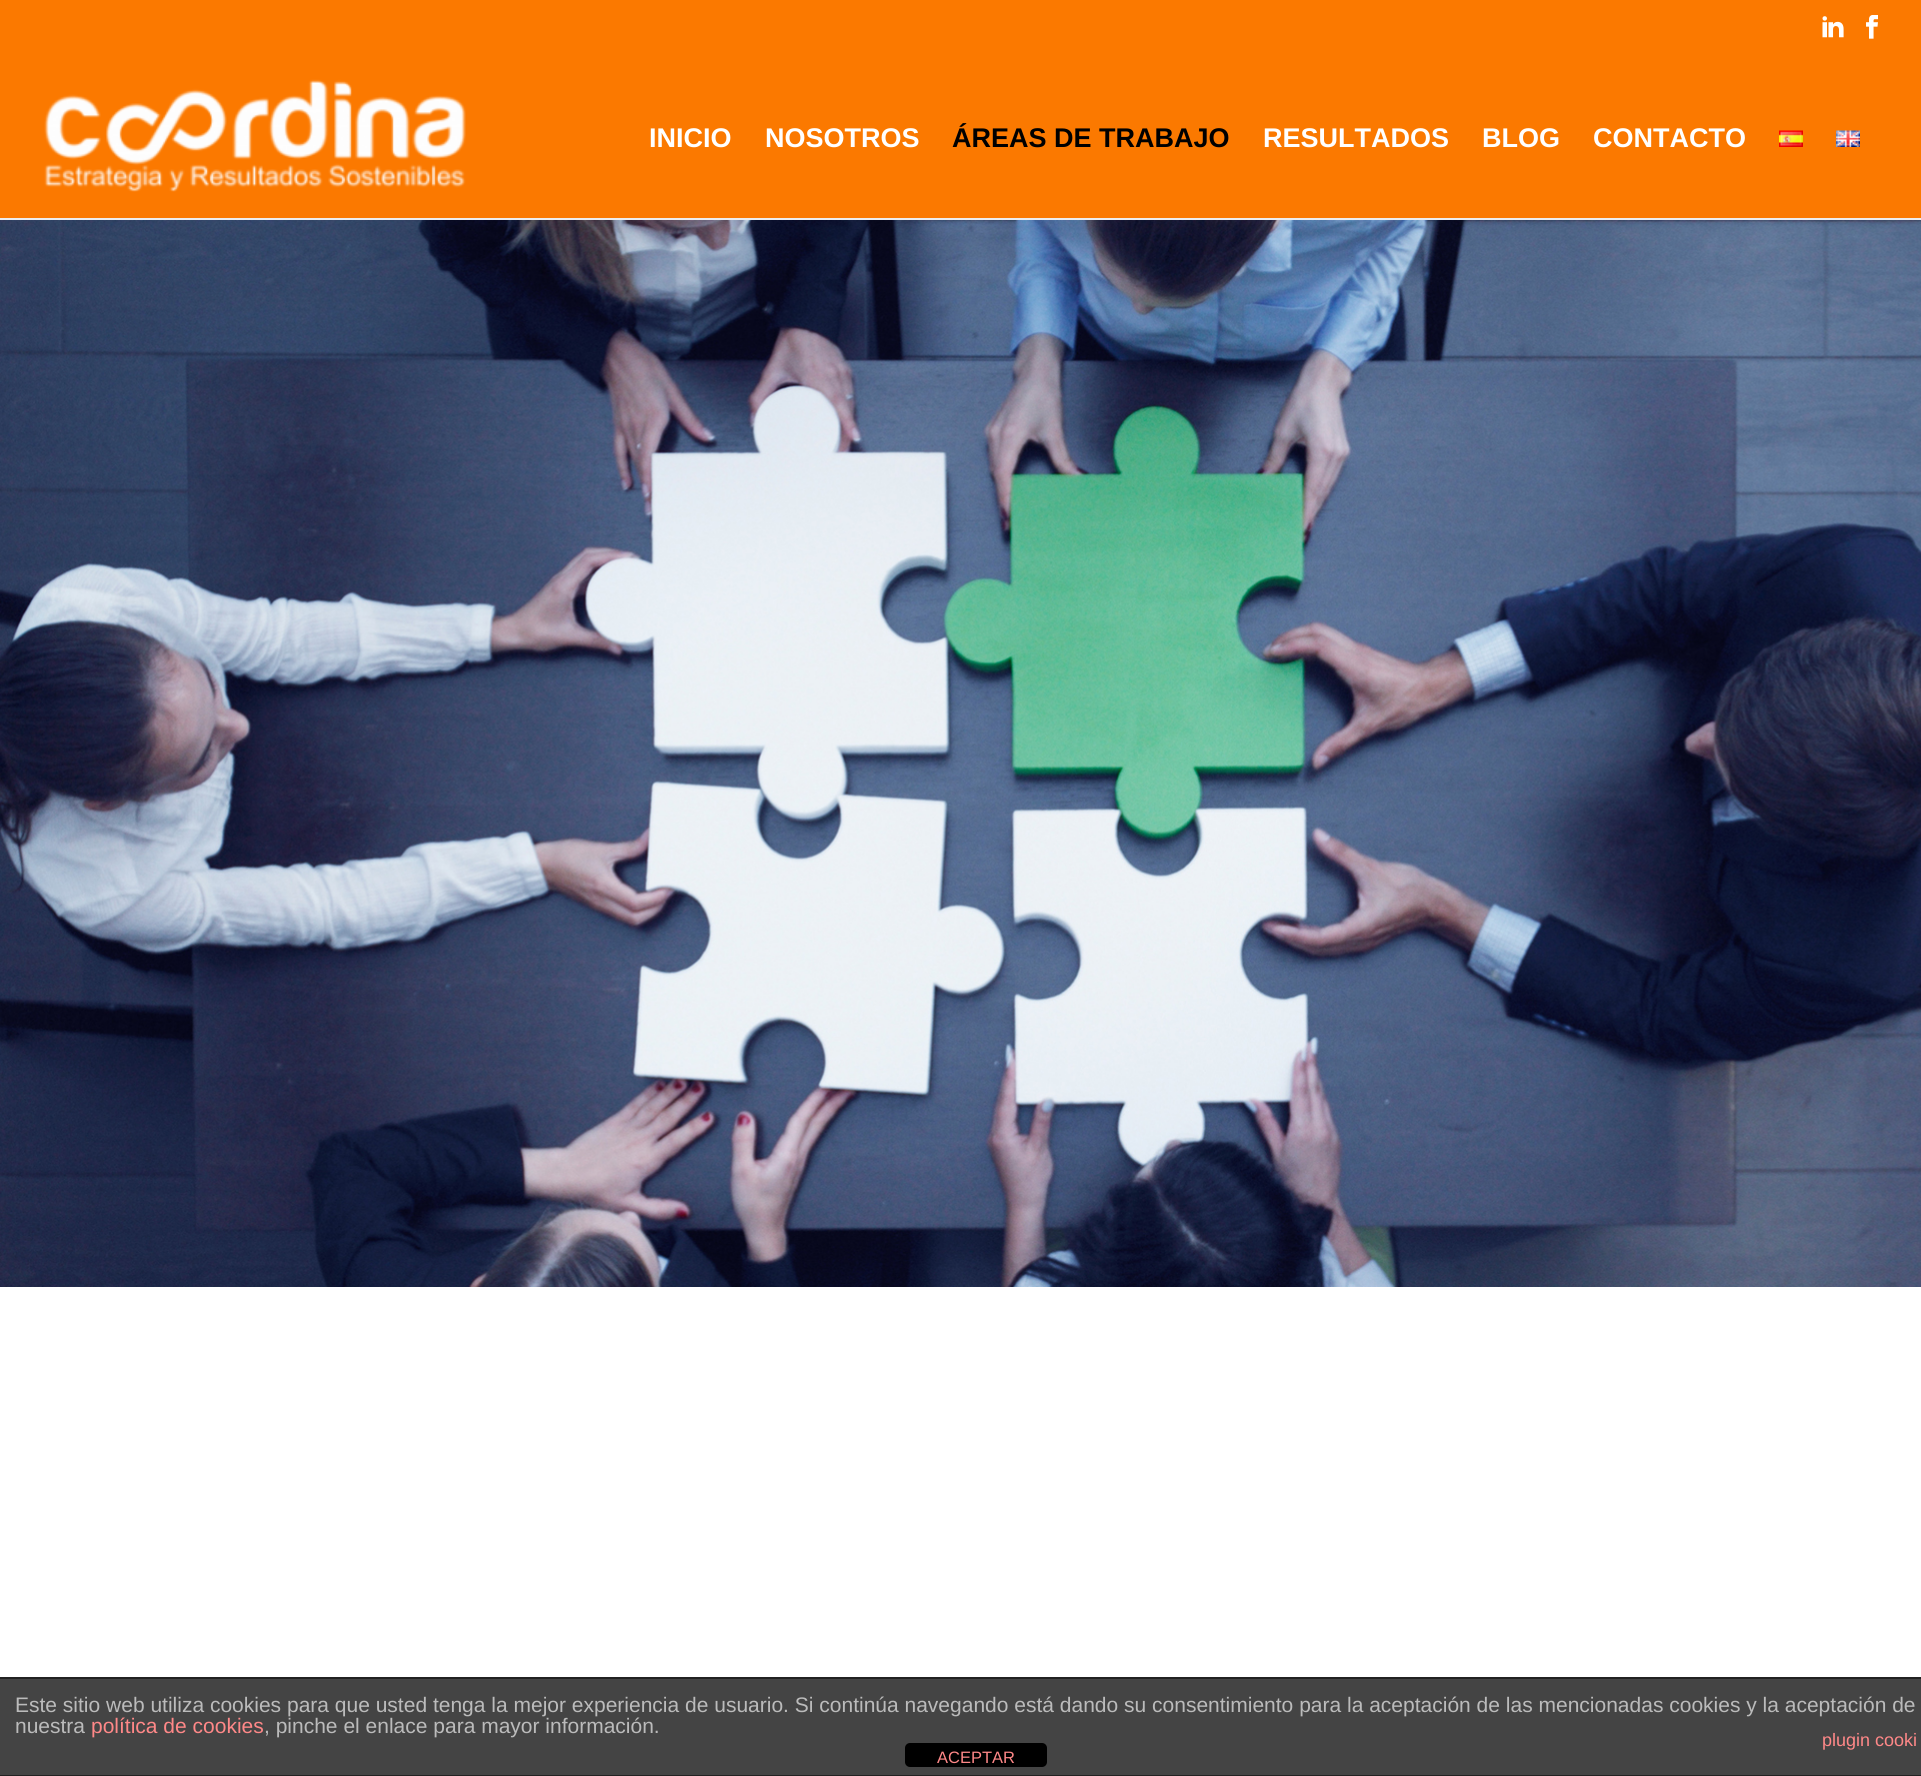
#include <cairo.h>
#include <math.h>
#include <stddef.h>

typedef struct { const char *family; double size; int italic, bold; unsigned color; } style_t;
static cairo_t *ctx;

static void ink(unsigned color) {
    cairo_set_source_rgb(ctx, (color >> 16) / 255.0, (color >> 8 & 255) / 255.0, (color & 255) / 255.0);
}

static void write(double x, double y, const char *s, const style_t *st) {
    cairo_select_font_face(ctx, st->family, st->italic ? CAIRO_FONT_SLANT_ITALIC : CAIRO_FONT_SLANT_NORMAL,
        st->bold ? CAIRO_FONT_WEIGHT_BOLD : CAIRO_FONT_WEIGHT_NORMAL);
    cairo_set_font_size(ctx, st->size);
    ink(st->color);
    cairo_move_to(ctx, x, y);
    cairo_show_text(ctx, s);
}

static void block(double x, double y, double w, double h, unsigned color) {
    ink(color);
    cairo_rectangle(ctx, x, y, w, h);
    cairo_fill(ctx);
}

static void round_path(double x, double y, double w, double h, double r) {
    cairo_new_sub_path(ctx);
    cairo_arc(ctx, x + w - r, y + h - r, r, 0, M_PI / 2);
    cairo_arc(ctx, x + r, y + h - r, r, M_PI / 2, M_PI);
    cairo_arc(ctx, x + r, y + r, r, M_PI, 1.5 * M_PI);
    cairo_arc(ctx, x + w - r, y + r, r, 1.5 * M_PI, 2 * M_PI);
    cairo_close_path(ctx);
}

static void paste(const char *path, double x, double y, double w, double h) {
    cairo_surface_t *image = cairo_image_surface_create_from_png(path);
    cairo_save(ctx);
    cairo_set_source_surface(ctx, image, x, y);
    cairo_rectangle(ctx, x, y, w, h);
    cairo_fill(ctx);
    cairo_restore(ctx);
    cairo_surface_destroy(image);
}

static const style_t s1 = {"Liberation Sans", 27, 0, 1, 0xffffff};
static const style_t s2 = {"Liberation Sans", 27, 0, 1, 0x000000};
static const style_t s3 = {"Liberation Sans", 21, 0, 0, 0xbbbbbb};
static const style_t s4 = {"Liberation Sans", 21, 0, 0, 0xff8888};
static const style_t s5 = {"Liberation Sans", 18, 0, 0, 0xff8888};
static const style_t s6 = {"Liberation Sans", 16.5, 0, 0, 0xff8888};

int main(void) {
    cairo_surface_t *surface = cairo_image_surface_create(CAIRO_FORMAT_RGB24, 1921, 1776);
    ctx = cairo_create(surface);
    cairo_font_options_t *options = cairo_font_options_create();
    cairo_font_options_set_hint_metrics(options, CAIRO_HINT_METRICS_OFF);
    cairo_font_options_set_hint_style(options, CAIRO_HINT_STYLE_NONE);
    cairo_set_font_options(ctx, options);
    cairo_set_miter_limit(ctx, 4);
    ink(0xffffff);
    cairo_paint(ctx);
    block(0, 0, 1921, 218, 0xfb7900);
    paste("pic1.png", 1822, 16, 22, 22);
    paste("pic2.png", 1866, 15, 12, 24);
    block(0, 218, 1921, 2, 0xededed);
    paste("pic3.png", 44, 79, 422, 113);
    write(649, 147, "INICIO", &s1);
    write(765, 147, "NOSOTROS", &s1);
    write(952, 147, "ÁREAS DE TRABAJO", &s2);
    write(1263, 147, "RESULTADOS", &s1);
    write(1482, 147, "BLOG", &s1);
    write(1593, 147, "CONTACTO", &s1);
    paste("pic4.png", 1779, 130, 24, 17);
    paste("pic5.png", 1836, 130, 24, 17);
    paste("pic6.png", 0, 220, 1921, 1067);
    block(0, 1679, 1921, 96, 0x444444);
    block(0, 1677, 1921, 2, 0x222222);
    block(0, 1775, 1921, 1, 0x222222);
    write(15, 1712, "Este sitio web utiliza cookies para que usted tenga la mejor experiencia de usuario. Si continúa navegando está dando su consentimiento para la aceptación de las mencionadas cookies y la aceptación de", &s3);
    write(15, 1733, "nuestra", &s3);
    write(91, 1733, "política de cookies", &s4);
    write(264, 1733, ", pinche el enlace para mayor información.", &s3);
    write(1822, 1746, "plugin cooki", &s5);
    ink(0x000000);
    round_path(905, 1743, 142, 24, 5);
    cairo_fill(ctx);
    write(937, 1763, "ACEPTAR", &s6);
    cairo_surface_write_to_png(surface, "screenshot.png");
    cairo_font_options_destroy(options);
    cairo_destroy(ctx);
    cairo_surface_destroy(surface);
    return 0;
}
